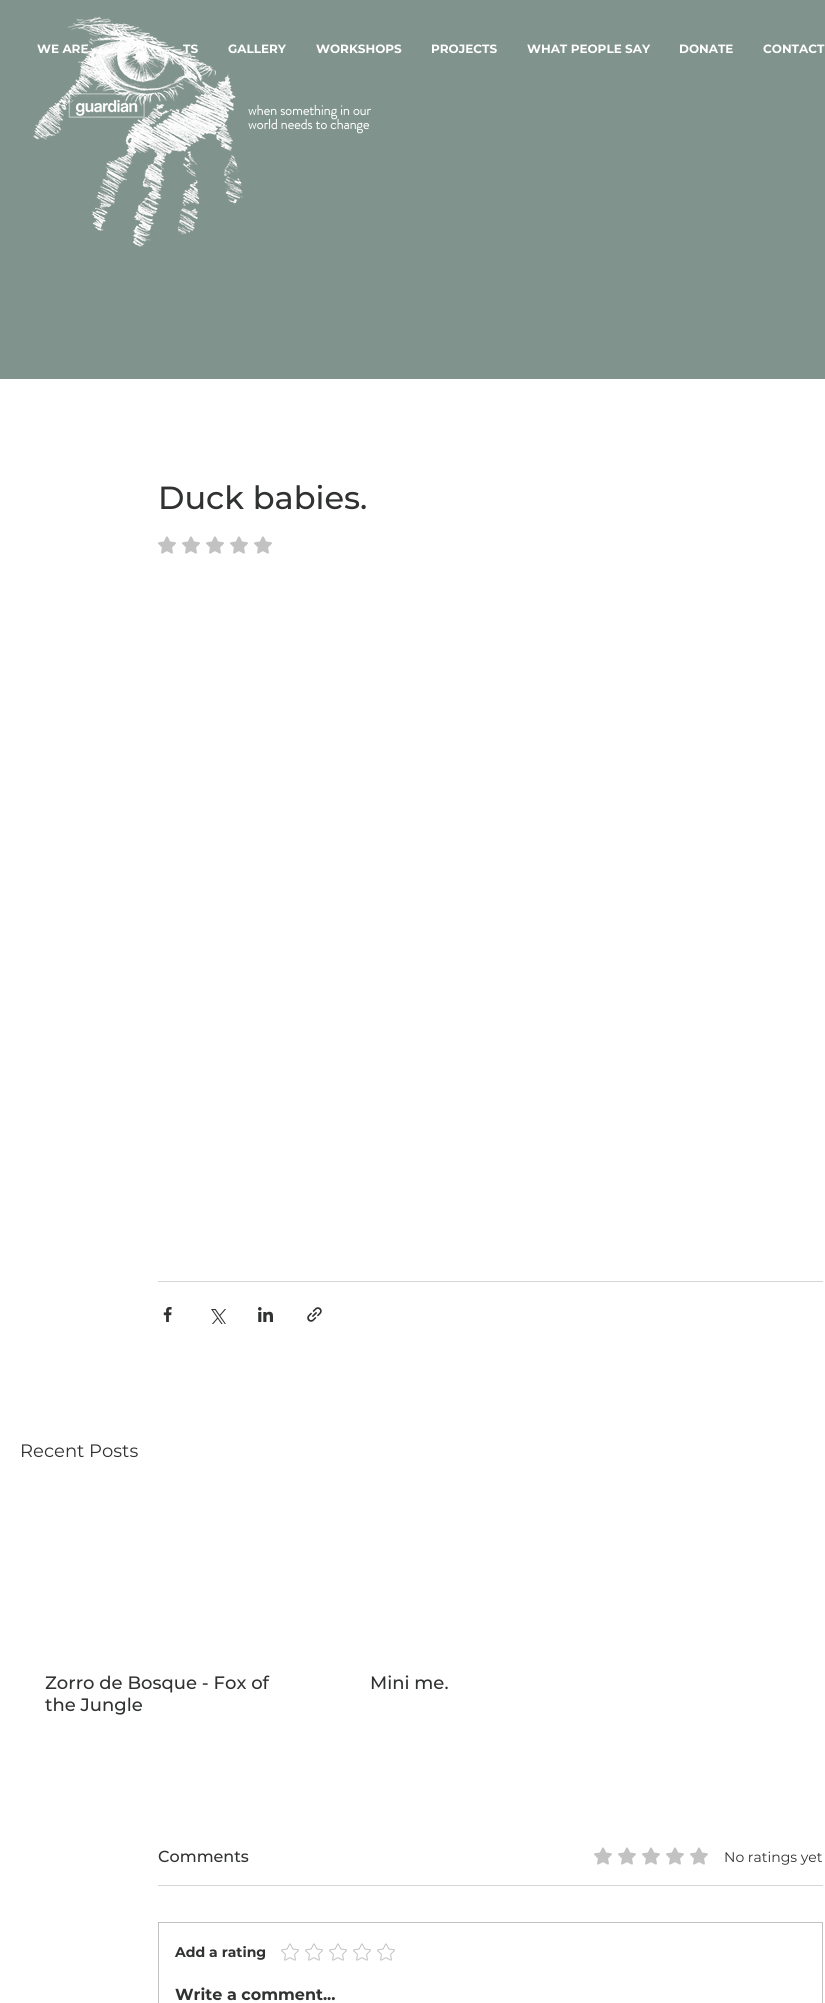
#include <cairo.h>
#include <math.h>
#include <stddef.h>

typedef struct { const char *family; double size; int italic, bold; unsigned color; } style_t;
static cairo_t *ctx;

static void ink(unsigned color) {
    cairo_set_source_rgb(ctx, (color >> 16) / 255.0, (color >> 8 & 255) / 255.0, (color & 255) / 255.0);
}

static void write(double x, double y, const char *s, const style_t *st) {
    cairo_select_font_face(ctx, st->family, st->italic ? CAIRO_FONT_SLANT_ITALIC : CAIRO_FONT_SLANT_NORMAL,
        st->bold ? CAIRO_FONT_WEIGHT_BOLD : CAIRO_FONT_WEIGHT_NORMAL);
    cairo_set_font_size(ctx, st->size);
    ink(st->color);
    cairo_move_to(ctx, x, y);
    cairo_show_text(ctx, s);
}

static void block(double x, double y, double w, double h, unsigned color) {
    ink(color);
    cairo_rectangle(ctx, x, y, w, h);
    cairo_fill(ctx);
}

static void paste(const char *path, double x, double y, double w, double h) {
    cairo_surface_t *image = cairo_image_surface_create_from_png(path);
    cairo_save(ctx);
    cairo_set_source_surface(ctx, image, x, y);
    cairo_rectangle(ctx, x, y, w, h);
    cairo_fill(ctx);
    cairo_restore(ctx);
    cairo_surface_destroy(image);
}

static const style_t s1 = {"Montserrat", 12, 0, 1, 0xffffff};
static const style_t s2 = {"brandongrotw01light", 14, 0, 1, 0xffffff};
static const style_t s3 = {"Montserrat Medium", 32, 0, 0, 0x303131};
static const style_t s4 = {"Montserrat", 18, 0, 0, 0x303131};
static const style_t s5 = {"Montserrat Medium", 18, 0, 0, 0x303131};
static const style_t s6 = {"Montserrat Medium", 16, 0, 0, 0x303131};
static const style_t s7 = {"Montserrat", 14, 0, 0, 0x303131};
static const style_t s8 = {"Montserrat", 14, 0, 1, 0x303131};
static const style_t s9 = {"Montserrat", 16, 0, 1, 0x303131};

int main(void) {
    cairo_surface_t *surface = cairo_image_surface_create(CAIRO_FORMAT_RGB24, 825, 2003);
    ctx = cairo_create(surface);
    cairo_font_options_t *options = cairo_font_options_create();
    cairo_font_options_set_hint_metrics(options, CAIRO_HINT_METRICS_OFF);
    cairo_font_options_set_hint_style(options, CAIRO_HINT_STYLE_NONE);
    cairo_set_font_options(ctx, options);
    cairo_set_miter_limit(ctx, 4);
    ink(0x80938d);
    cairo_paint(ctx);
    paste("pic1.png", 33, 16, 210, 231);
    write(37, 53, "WE ARE", &s1);
    write(183, 53, "TS", &s1);
    write(228, 53, "GALLERY", &s1);
    write(316, 53, "WORKSHOPS", &s1);
    write(431, 53, "PROJECTS", &s1);
    write(527, 53, "WHAT PEOPLE SAY", &s1);
    write(679, 53, "DONATE", &s1);
    write(763, 53, "CONTACT", &s1);
    write(248, 115, "when something in our", &s2);
    write(248, 129, "world needs to change", &s2);
    block(0, 379, 825, 1624, 0xffffff);
    write(158, 509, "Duck babies.", &s3);
    paste("pic2.png", 158, 536, 18, 18);
    paste("pic2.png", 182, 536, 18, 18);
    paste("pic2.png", 206, 536, 18, 18);
    paste("pic2.png", 230, 536, 18, 18);
    paste("pic2.png", 254, 536, 18, 18);
    block(158, 1281, 665, 1, 0xd6d6d6);
    paste("pic3.png", 163, 1307, 9, 15);
    paste("pic4.png", 211, 1309, 15, 15);
    paste("pic5.png", 258, 1307, 15, 15);
    paste("pic6.png", 307, 1307, 15, 15);
    write(20, 1457, "Recent Posts", &s4);
    write(45, 1689, "Zorro de Bosque - Fox of", &s5);
    write(45, 1711, "the Jungle", &s5);
    write(370, 1689, "Mini me.", &s5);
    write(158, 1862, "Comments", &s6);
    paste("pic2.png", 594, 1847, 18, 18);
    paste("pic2.png", 618, 1847, 18, 18);
    paste("pic2.png", 642, 1847, 18, 18);
    paste("pic2.png", 666, 1847, 18, 18);
    paste("pic2.png", 690, 1847, 18, 18);
    write(724, 1862, "No ratings yet", &s7);
    block(158, 1885, 665, 1, 0xd6d6d6);
    cairo_rectangle(ctx, 158.5, 1922.5, 664, 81);
    ink(0xc1c1c1);
    cairo_set_line_width(ctx, 1);
    cairo_stroke(ctx);
    write(175, 1957, "Add a rating", &s8);
    paste("pic7.png", 281, 1943, 18, 18);
    paste("pic7.png", 305, 1943, 18, 18);
    paste("pic7.png", 329, 1943, 18, 18);
    paste("pic7.png", 353, 1943, 18, 18);
    paste("pic7.png", 377, 1943, 18, 18);
    write(175, 2000, "Write a comment...", &s9);
    cairo_surface_write_to_png(surface, "screenshot.png");
    cairo_font_options_destroy(options);
    cairo_destroy(ctx);
    cairo_surface_destroy(surface);
    return 0;
}
